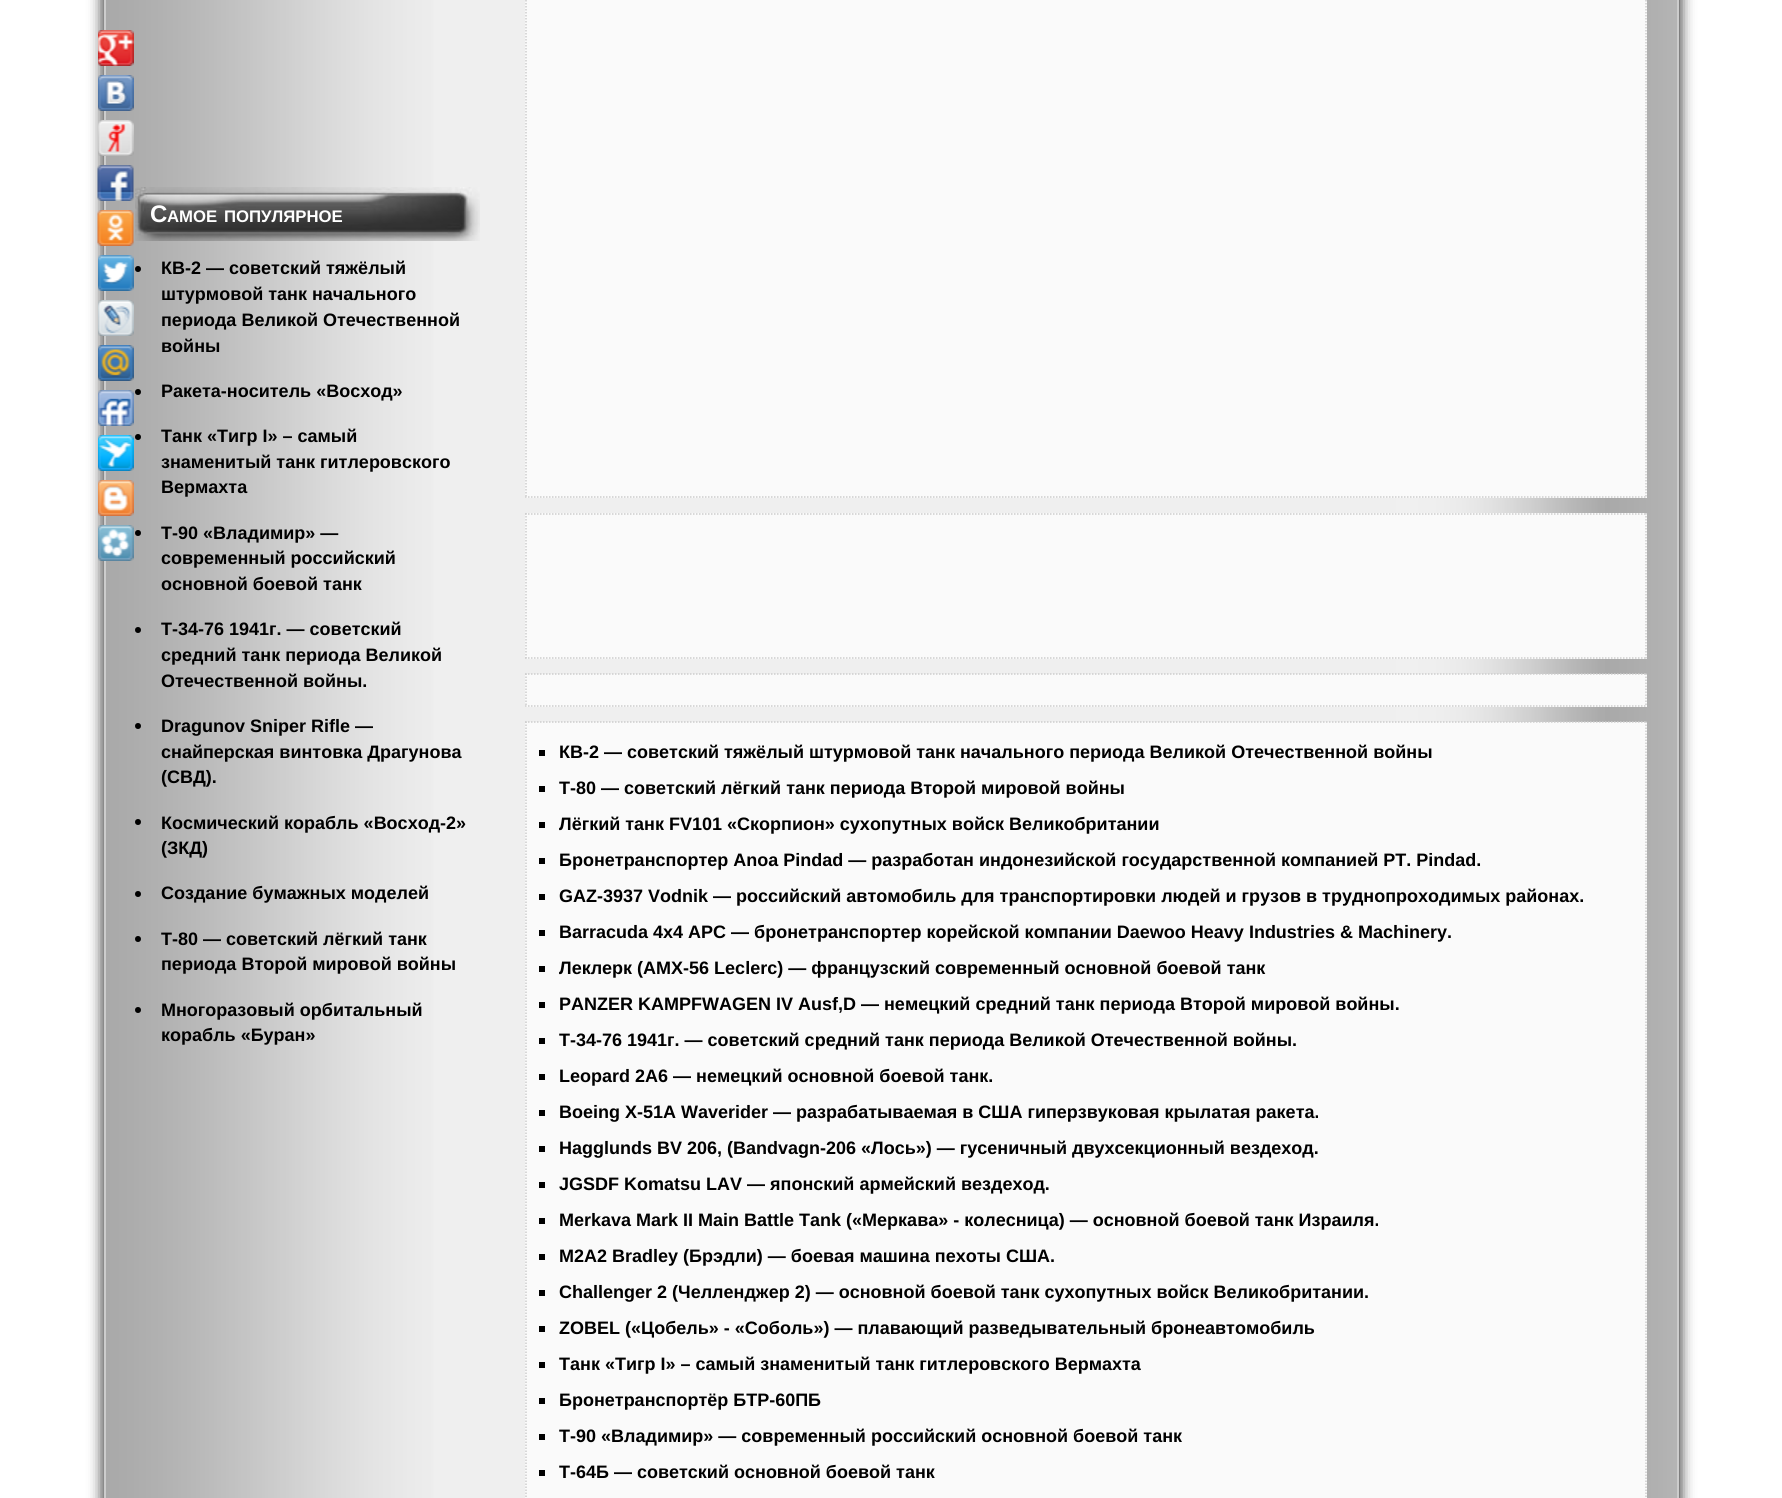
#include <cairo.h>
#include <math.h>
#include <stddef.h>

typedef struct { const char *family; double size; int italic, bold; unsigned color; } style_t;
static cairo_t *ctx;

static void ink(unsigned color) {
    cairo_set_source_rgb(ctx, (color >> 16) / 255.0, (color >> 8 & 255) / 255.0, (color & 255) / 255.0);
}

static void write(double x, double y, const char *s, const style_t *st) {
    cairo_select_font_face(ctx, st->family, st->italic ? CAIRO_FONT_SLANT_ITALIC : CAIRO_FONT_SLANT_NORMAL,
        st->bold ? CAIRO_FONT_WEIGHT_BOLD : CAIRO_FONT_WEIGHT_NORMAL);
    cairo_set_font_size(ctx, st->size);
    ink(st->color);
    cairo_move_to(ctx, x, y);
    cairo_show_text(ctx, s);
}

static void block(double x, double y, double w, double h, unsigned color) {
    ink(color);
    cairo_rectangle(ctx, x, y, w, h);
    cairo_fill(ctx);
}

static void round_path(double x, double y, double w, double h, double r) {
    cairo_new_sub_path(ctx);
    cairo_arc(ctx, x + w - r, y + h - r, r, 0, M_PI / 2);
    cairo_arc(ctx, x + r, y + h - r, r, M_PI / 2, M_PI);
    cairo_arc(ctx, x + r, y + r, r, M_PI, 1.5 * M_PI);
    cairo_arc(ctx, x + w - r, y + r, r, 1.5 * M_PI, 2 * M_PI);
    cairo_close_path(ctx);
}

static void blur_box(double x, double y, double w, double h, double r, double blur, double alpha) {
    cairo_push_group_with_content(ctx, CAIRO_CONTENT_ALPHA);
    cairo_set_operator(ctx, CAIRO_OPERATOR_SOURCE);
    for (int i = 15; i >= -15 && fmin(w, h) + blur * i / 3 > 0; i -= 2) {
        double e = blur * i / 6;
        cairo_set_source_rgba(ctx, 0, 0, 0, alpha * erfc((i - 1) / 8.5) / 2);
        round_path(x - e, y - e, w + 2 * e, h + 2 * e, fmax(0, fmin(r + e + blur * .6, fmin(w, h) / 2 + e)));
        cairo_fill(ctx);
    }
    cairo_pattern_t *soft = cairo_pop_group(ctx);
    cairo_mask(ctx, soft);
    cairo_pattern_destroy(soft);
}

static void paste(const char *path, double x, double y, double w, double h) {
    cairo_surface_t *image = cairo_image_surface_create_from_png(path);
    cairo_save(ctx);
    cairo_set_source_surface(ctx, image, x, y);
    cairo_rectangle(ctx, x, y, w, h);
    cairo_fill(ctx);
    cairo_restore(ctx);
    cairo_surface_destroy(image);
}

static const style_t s1 = {"Liberation Sans", 24, 0, 1, 0xffffff};
static const style_t s2 = {"Liberation Sans", 16.75, 0, 1, 0xffffff};
static const style_t s3 = {"Liberation Sans", 18, 0, 1, 0x000000};

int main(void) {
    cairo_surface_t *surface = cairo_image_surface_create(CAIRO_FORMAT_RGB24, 1782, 1498);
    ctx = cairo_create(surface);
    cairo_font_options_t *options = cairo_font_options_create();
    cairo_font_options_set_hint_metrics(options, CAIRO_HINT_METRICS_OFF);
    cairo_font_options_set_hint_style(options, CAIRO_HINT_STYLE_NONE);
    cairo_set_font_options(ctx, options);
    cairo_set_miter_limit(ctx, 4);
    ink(0xffffff);
    cairo_paint(ctx);
    ink(0x000000);
    blur_box(104, -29, 1575, 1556, 6, 7.5, 1);
    paste("pic1.png", 103, 0, 1574, 1498);
    cairo_rectangle(ctx, 105, -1, 1573, 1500);
    ink(0xcccccc);
    cairo_stroke(ctx);
    paste("pic2.png", 98, 30, 36, 36);
    paste("pic3.png", 98, 75, 36, 36);
    paste("pic4.png", 98, 120, 36, 36);
    paste("pic5.png", 97, 165, 37, 36);
    paste("pic6.png", 97, 210, 37, 36);
    paste("pic7.png", 98, 255, 36, 36);
    paste("pic8.png", 98, 300, 36, 36);
    paste("pic9.png", 98, 345, 36, 36);
    paste("pic10.png", 98, 390, 36, 36);
    paste("pic11.png", 98, 435, 36, 36);
    paste("pic12.png", 98, 480, 36, 36);
    paste("pic13.png", 98, 525, 36, 36);
    paste("pic14.png", 135, 187, 345, 54);
    write(150, 222, "С", &s1);
    write(167, 222, "АМОЕ", &s2);
    write(224, 222, "ПОПУЛЯРНОЕ", &s2);
    ink(0x000000);
    cairo_new_path(ctx);
    cairo_arc(ctx, 138, 269, 3, 0, 2 * M_PI);
    cairo_fill(ctx);
    write(161, 274, "КВ-2 — советский тяжёлый", &s3);
    write(161, 300, "штурмовой танк начального", &s3);
    write(161, 326, "периода Великой Отечественной", &s3);
    write(161, 352, "войны", &s3);
    cairo_new_path(ctx);
    cairo_arc(ctx, 138, 392, 3, 0, 2 * M_PI);
    cairo_fill(ctx);
    write(161, 397, "Ракета-носитель «Восход»", &s3);
    cairo_new_path(ctx);
    cairo_arc(ctx, 138, 437, 3, 0, 2 * M_PI);
    cairo_fill(ctx);
    write(161, 442, "Танк «Тигр I» – самый", &s3);
    write(161, 468, "знаменитый танк гитлеровского", &s3);
    write(161, 493, "Вермахта", &s3);
    cairo_new_path(ctx);
    cairo_arc(ctx, 138, 533, 3, 0, 2 * M_PI);
    cairo_fill(ctx);
    write(161, 539, "Т-90 «Владимир» —", &s3);
    write(161, 564, "современный российский", &s3);
    write(161, 590, "основной боевой танк", &s3);
    cairo_new_path(ctx);
    cairo_arc(ctx, 138, 630, 3, 0, 2 * M_PI);
    cairo_fill(ctx);
    write(161, 635, "T-34-76 1941г. — советский", &s3);
    write(161, 661, "средний танк периода Великой", &s3);
    write(161, 687, "Отечественной войны.", &s3);
    cairo_new_path(ctx);
    cairo_arc(ctx, 138, 726, 3, 0, 2 * M_PI);
    cairo_fill(ctx);
    write(161, 732, "Dragunov Sniper Rifle —", &s3);
    write(161, 758, "снайперская винтовка Драгунова", &s3);
    write(161, 783, "(СВД).", &s3);
    cairo_new_path(ctx);
    cairo_arc(ctx, 138, 822, 3, 0, 2 * M_PI);
    cairo_fill(ctx);
    write(161, 829, "Космический корабль «Восход-2»", &s3);
    write(161, 854, "(ЗКД)", &s3);
    cairo_new_path(ctx);
    cairo_arc(ctx, 138, 894, 3, 0, 2 * M_PI);
    cairo_fill(ctx);
    write(161, 899, "Создание бумажных моделей", &s3);
    cairo_new_path(ctx);
    cairo_arc(ctx, 138, 939, 3, 0, 2 * M_PI);
    cairo_fill(ctx);
    write(161, 945, "Т-80 — советский лёгкий танк", &s3);
    write(161, 970, "периода Второй мировой войны", &s3);
    cairo_new_path(ctx);
    cairo_arc(ctx, 138, 1010, 3, 0, 2 * M_PI);
    cairo_fill(ctx);
    write(161, 1016, "Многоразовый орбитальный", &s3);
    write(161, 1041, "корабль «Буран»", &s3);
    block(525, 0, 1122, 498, 0xfafafa);
    cairo_new_path(ctx);
    cairo_move_to(ctx, 1646, -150);
    cairo_line_to(ctx, 1646, 498);
    ink(0xcccccc);
    cairo_set_line_width(ctx, 1.5);
    cairo_set_dash(ctx, (double[]){1.5, 1.5}, 2, 0);
    cairo_stroke(ctx);
    cairo_new_path(ctx);
    cairo_move_to(ctx, 525, 497);
    cairo_line_to(ctx, 1647, 497);
    cairo_stroke(ctx);
    cairo_new_path(ctx);
    cairo_move_to(ctx, 526, -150);
    cairo_line_to(ctx, 526, 498);
    cairo_stroke(ctx);
    block(525, 513, 1122, 146, 0xfafafa);
    cairo_new_path(ctx);
    cairo_move_to(ctx, 525, 514);
    cairo_line_to(ctx, 1647, 514);
    ink(0xcccccc);
    cairo_stroke(ctx);
    cairo_new_path(ctx);
    cairo_move_to(ctx, 1646, 513);
    cairo_line_to(ctx, 1646, 658.5);
    cairo_stroke(ctx);
    cairo_new_path(ctx);
    cairo_move_to(ctx, 525, 658);
    cairo_line_to(ctx, 1647, 658);
    cairo_stroke(ctx);
    cairo_new_path(ctx);
    cairo_move_to(ctx, 526, 513);
    cairo_line_to(ctx, 526, 658.5);
    cairo_stroke(ctx);
    block(525, 674, 1122, 33, 0xfafafa);
    cairo_new_path(ctx);
    cairo_move_to(ctx, 525, 674);
    cairo_line_to(ctx, 1647, 674);
    ink(0xcccccc);
    cairo_stroke(ctx);
    cairo_new_path(ctx);
    cairo_move_to(ctx, 1646, 673.5);
    cairo_line_to(ctx, 1646, 706.5);
    cairo_stroke(ctx);
    cairo_new_path(ctx);
    cairo_move_to(ctx, 525, 706);
    cairo_line_to(ctx, 1647, 706);
    cairo_stroke(ctx);
    cairo_new_path(ctx);
    cairo_move_to(ctx, 526, 673.5);
    cairo_line_to(ctx, 526, 706.5);
    cairo_stroke(ctx);
    block(525, 722, 1122, 776, 0xfafafa);
    cairo_new_path(ctx);
    cairo_move_to(ctx, 525, 722);
    cairo_line_to(ctx, 1647, 722);
    ink(0xcccccc);
    cairo_stroke(ctx);
    cairo_new_path(ctx);
    cairo_move_to(ctx, 1646, 721.5);
    cairo_line_to(ctx, 1646, 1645.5);
    cairo_stroke(ctx);
    cairo_new_path(ctx);
    cairo_move_to(ctx, 526, 721.5);
    cairo_line_to(ctx, 526, 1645.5);
    cairo_stroke(ctx);
    block(539, 750, 6, 6, 0x000000);
    write(559, 758, "КВ-2 — советский тяжёлый штурмовой танк начального периода Великой Отечественной войны", &s3);
    block(539, 786, 6, 6, 0x000000);
    write(559, 794, "Т-80 — советский лёгкий танк периода Второй мировой войны", &s3);
    block(539, 822, 6, 6, 0x000000);
    write(559, 830, "Лёгкий танк FV101 «Скорпион» сухопутных войск Великобритании", &s3);
    block(539, 858, 6, 6, 0x000000);
    write(559, 866, "Бронетранспортер Anoa Pindad — разработан индонезийской государственной компанией PT. Pindad.", &s3);
    block(539, 894, 6, 6, 0x000000);
    write(559, 902, "GAZ-3937 Vodnik — российский автомобиль для транспортировки людей и грузов в труднопроходимых районах.", &s3);
    block(539, 930, 6, 6, 0x000000);
    write(559, 938, "Barracuda 4x4 APC — бронетранспортер корейской компании Daewoo Heavy Industries & Machinery.", &s3);
    block(539, 966, 6, 6, 0x000000);
    write(559, 974, "Леклерк (AMX-56 Leclerc) — французский современный основной боевой танк", &s3);
    block(539, 1002, 6, 6, 0x000000);
    write(559, 1010, "PANZER KAMPFWAGEN IV Ausf,D — немецкий средний танк периода Второй мировой войны.", &s3);
    block(539, 1038, 6, 6, 0x000000);
    write(559, 1046, "T-34-76 1941г. — советский средний танк периода Великой Отечественной войны.", &s3);
    block(539, 1074, 6, 6, 0x000000);
    write(559, 1082, "Leopard 2A6 — немецкий основной боевой танк.", &s3);
    block(539, 1110, 6, 6, 0x000000);
    write(559, 1118, "Boeing X-51A Waverider — разрабатываемая в США гиперзвуковая крылатая ракета.", &s3);
    block(539, 1146, 6, 6, 0x000000);
    write(559, 1154, "Hagglunds BV 206, (Bandvagn-206 «Лось») — гусеничный двухсекционный вездеход.", &s3);
    block(539, 1182, 6, 6, 0x000000);
    write(559, 1190, "JGSDF Komatsu LAV — японский армейский вездеход.", &s3);
    block(539, 1218, 6, 6, 0x000000);
    write(559, 1226, "Merkava Mark II Main Battle Tank («Меркава» - колесница) — основной боевой танк Израиля.", &s3);
    block(539, 1254, 6, 6, 0x000000);
    write(559, 1262, "M2A2 Bradley (Брэдли) — боевая машина пехоты США.", &s3);
    block(539, 1290, 6, 6, 0x000000);
    write(559, 1298, "Challenger 2 (Челленджер 2) — основной боевой танк сухопутных войск Великобритании.", &s3);
    block(539, 1326, 6, 6, 0x000000);
    write(559, 1334, "ZOBEL («Цобель» - «Соболь») — плавающий разведывательный бронеавтомобиль", &s3);
    block(539, 1362, 6, 6, 0x000000);
    write(559, 1370, "Танк «Тигр I» – самый знаменитый танк гитлеровского Вермахта", &s3);
    block(539, 1398, 6, 6, 0x000000);
    write(559, 1406, "Бронетранспортёр БТР-60ПБ", &s3);
    block(539, 1434, 6, 6, 0x000000);
    write(559, 1442, "Т-90 «Владимир» — современный российский основной боевой танк", &s3);
    block(539, 1470, 6, 6, 0x000000);
    write(559, 1478, "Т-64Б — советский основной боевой танк", &s3);
    cairo_surface_write_to_png(surface, "screenshot.png");
    cairo_font_options_destroy(options);
    cairo_destroy(ctx);
    cairo_surface_destroy(surface);
    return 0;
}
